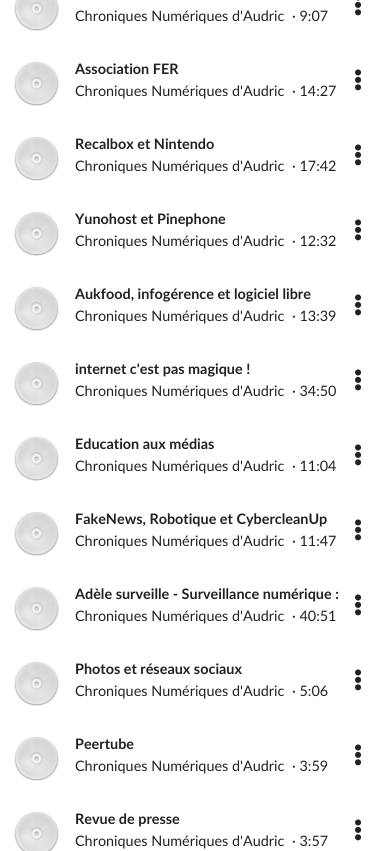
#include <cairo.h>
#include <math.h>
#include <stddef.h>

typedef struct { const char *family; double size; int italic, bold; unsigned color; } style_t;
static cairo_t *ctx;

static void ink(unsigned color) {
    cairo_set_source_rgb(ctx, (color >> 16) / 255.0, (color >> 8 & 255) / 255.0, (color & 255) / 255.0);
}

static void write(double x, double y, const char *s, const style_t *st) {
    cairo_select_font_face(ctx, st->family, st->italic ? CAIRO_FONT_SLANT_ITALIC : CAIRO_FONT_SLANT_NORMAL,
        st->bold ? CAIRO_FONT_WEIGHT_BOLD : CAIRO_FONT_WEIGHT_NORMAL);
    cairo_set_font_size(ctx, st->size);
    ink(st->color);
    cairo_move_to(ctx, x, y);
    cairo_show_text(ctx, s);
}

static void paste(const char *path, double x, double y, double w, double h) {
    cairo_surface_t *image = cairo_image_surface_create_from_png(path);
    cairo_save(ctx);
    cairo_set_source_surface(ctx, image, x, y);
    cairo_rectangle(ctx, x, y, w, h);
    cairo_fill(ctx);
    cairo_restore(ctx);
    cairo_surface_destroy(image);
}

static const style_t s1 = {"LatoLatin", 14.4, 0, 0, 0x212121};
static const style_t s2 = {"LatoLatin", 14.4, 0, 1, 0x212121};

int main(void) {
    cairo_surface_t *surface = cairo_image_surface_create(CAIRO_FORMAT_RGB24, 379, 851);
    ctx = cairo_create(surface);
    cairo_font_options_t *options = cairo_font_options_create();
    cairo_font_options_set_hint_metrics(options, CAIRO_HINT_METRICS_OFF);
    cairo_font_options_set_hint_style(options, CAIRO_HINT_STYLE_NONE);
    cairo_set_font_options(ctx, options);
    cairo_set_miter_limit(ctx, 4);
    ink(0xffffff);
    cairo_paint(ctx);
    paste("pic1.png", 14, 0, 45, 31);
    write(75, 21, "Chroniques Numériques d'Audric", &s1);
    write(292, 21, "· 9:07", &s1);
    paste("pic2.png", 355, 0, 7, 16);
    paste("pic3.png", 14, 61, 45, 45);
    write(75, 74, "Association FER", &s2);
    write(75, 96, "Chroniques Numériques d'Audric", &s1);
    write(292, 96, "· 14:27", &s1);
    paste("pic4.png", 355, 69, 7, 22);
    paste("pic3.png", 14, 136, 45, 45);
    write(75, 149, "Recalbox et Nintendo", &s2);
    write(75, 171, "Chroniques Numériques d'Audric", &s1);
    write(292, 171, "· 17:42", &s1);
    paste("pic4.png", 355, 144, 7, 22);
    paste("pic3.png", 14, 211, 45, 45);
    write(75, 224, "Yunohost et Pinephone", &s2);
    write(75, 246, "Chroniques Numériques d'Audric", &s1);
    write(292, 246, "· 12:32", &s1);
    paste("pic4.png", 355, 219, 7, 22);
    paste("pic5.png", 14, 286, 45, 45);
    write(75, 299, "Aukfood, infogérence et logiciel libre", &s2);
    write(75, 321, "Chroniques Numériques d'Audric", &s1);
    write(292, 321, "· 13:39", &s1);
    paste("pic4.png", 355, 294, 7, 22);
    paste("pic3.png", 14, 361, 45, 45);
    write(75, 374, "internet c'est pas magique !", &s2);
    write(75, 396, "Chroniques Numériques d'Audric", &s1);
    write(292, 396, "· 34:50", &s1);
    paste("pic4.png", 355, 369, 7, 22);
    paste("pic3.png", 14, 436, 45, 45);
    write(75, 449, "Education aux médias", &s2);
    write(75, 471, "Chroniques Numériques d'Audric", &s1);
    write(292, 471, "· 11:04", &s1);
    paste("pic4.png", 355, 444, 7, 22);
    paste("pic3.png", 14, 511, 45, 45);
    write(75, 524, "FakeNews, Robotique et CybercleanUp", &s2);
    write(75, 546, "Chroniques Numériques d'Audric", &s1);
    write(292, 546, "· 11:47", &s1);
    paste("pic4.png", 355, 519, 7, 22);
    paste("pic3.png", 14, 586, 45, 45);
    write(75, 599, "Adèle surveille - Surveillance numérique :", &s2);
    write(75, 621, "Chroniques Numériques d'Audric", &s1);
    write(292, 621, "· 40:51", &s1);
    paste("pic4.png", 355, 594, 7, 22);
    paste("pic3.png", 14, 661, 45, 45);
    write(75, 674, "Photos et réseaux sociaux", &s2);
    write(75, 696, "Chroniques Numériques d'Audric", &s1);
    write(292, 696, "· 5:06", &s1);
    paste("pic4.png", 355, 669, 7, 22);
    paste("pic3.png", 14, 736, 45, 45);
    write(75, 749, "Peertube", &s2);
    write(75, 771, "Chroniques Numériques d'Audric", &s1);
    write(292, 771, "· 3:59", &s1);
    paste("pic4.png", 355, 744, 7, 22);
    paste("pic6.png", 14, 811, 45, 40);
    write(75, 824, "Revue de presse", &s2);
    write(75, 846, "Chroniques Numériques d'Audric", &s1);
    write(292, 846, "· 3:57", &s1);
    paste("pic4.png", 355, 819, 7, 22);
    cairo_surface_write_to_png(surface, "screenshot.png");
    cairo_font_options_destroy(options);
    cairo_destroy(ctx);
    cairo_surface_destroy(surface);
    return 0;
}
